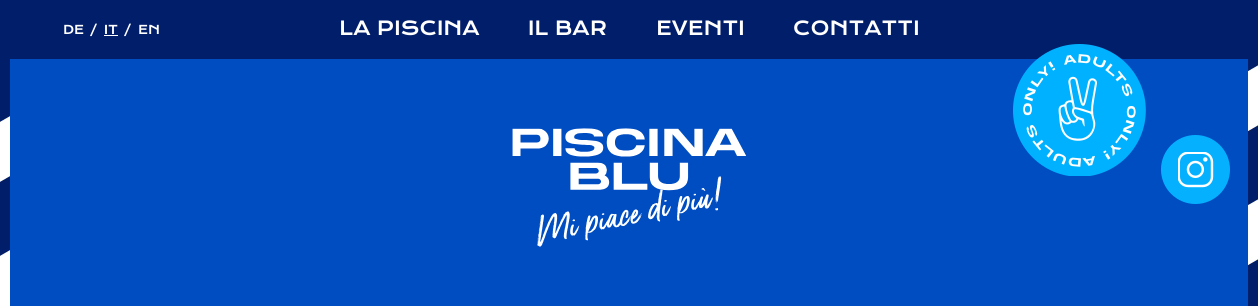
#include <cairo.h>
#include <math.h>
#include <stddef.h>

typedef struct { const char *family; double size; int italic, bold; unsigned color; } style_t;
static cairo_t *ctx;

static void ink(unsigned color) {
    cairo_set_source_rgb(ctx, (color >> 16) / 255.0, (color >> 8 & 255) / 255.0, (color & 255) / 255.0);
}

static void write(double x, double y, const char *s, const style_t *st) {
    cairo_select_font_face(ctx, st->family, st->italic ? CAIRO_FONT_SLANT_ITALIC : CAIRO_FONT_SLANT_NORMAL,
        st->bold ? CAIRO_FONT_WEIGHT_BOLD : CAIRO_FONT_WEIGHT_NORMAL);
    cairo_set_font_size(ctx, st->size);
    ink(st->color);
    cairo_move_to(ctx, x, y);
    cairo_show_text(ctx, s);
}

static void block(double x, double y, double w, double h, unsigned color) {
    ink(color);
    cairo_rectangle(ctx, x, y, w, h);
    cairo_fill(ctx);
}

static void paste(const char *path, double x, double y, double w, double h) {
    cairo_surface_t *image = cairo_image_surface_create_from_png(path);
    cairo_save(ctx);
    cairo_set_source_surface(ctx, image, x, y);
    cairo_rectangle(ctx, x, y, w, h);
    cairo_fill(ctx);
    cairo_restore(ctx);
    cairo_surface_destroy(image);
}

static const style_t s1 = {"Krona One", 12, 0, 0, 0xffffff};
static const style_t s2 = {"Krona One", 19, 0, 0, 0xffffff};

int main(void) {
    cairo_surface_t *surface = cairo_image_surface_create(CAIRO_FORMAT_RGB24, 1258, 306);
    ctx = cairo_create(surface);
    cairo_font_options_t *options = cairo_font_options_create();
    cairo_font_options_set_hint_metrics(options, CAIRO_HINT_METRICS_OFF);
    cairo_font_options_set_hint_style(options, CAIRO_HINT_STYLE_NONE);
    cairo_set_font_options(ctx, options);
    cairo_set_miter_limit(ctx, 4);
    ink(0xffffff);
    cairo_paint(ctx);
    paste("pic1.png", 0, 59, 1258, 247);
    block(0, 0, 1258, 59, 0x011e6a);
    write(63, 34, "DE", &s1);
    write(89, 34, "/", &s1);
    write(104, 34, "IT", &s1);
    block(104, 35, 14, 1, 0xffffff);
    write(123, 34, "/", &s1);
    write(138, 34, "EN", &s1);
    write(339, 35, "LA PISCINA", &s2);
    write(528, 35, "IL BAR", &s2);
    write(656, 35, "EVENTI", &s2);
    write(793, 35, "CONTATTI", &s2);
    block(10, 59, 1238, 247, 0x004dc2);
    paste("pic2.png", 512, 128, 234, 119);
    paste("pic3.png", 1013, 44, 133, 132);
    paste("pic4.png", 1161, 135, 69, 69);
    cairo_surface_write_to_png(surface, "screenshot.png");
    cairo_font_options_destroy(options);
    cairo_destroy(ctx);
    cairo_surface_destroy(surface);
    return 0;
}
